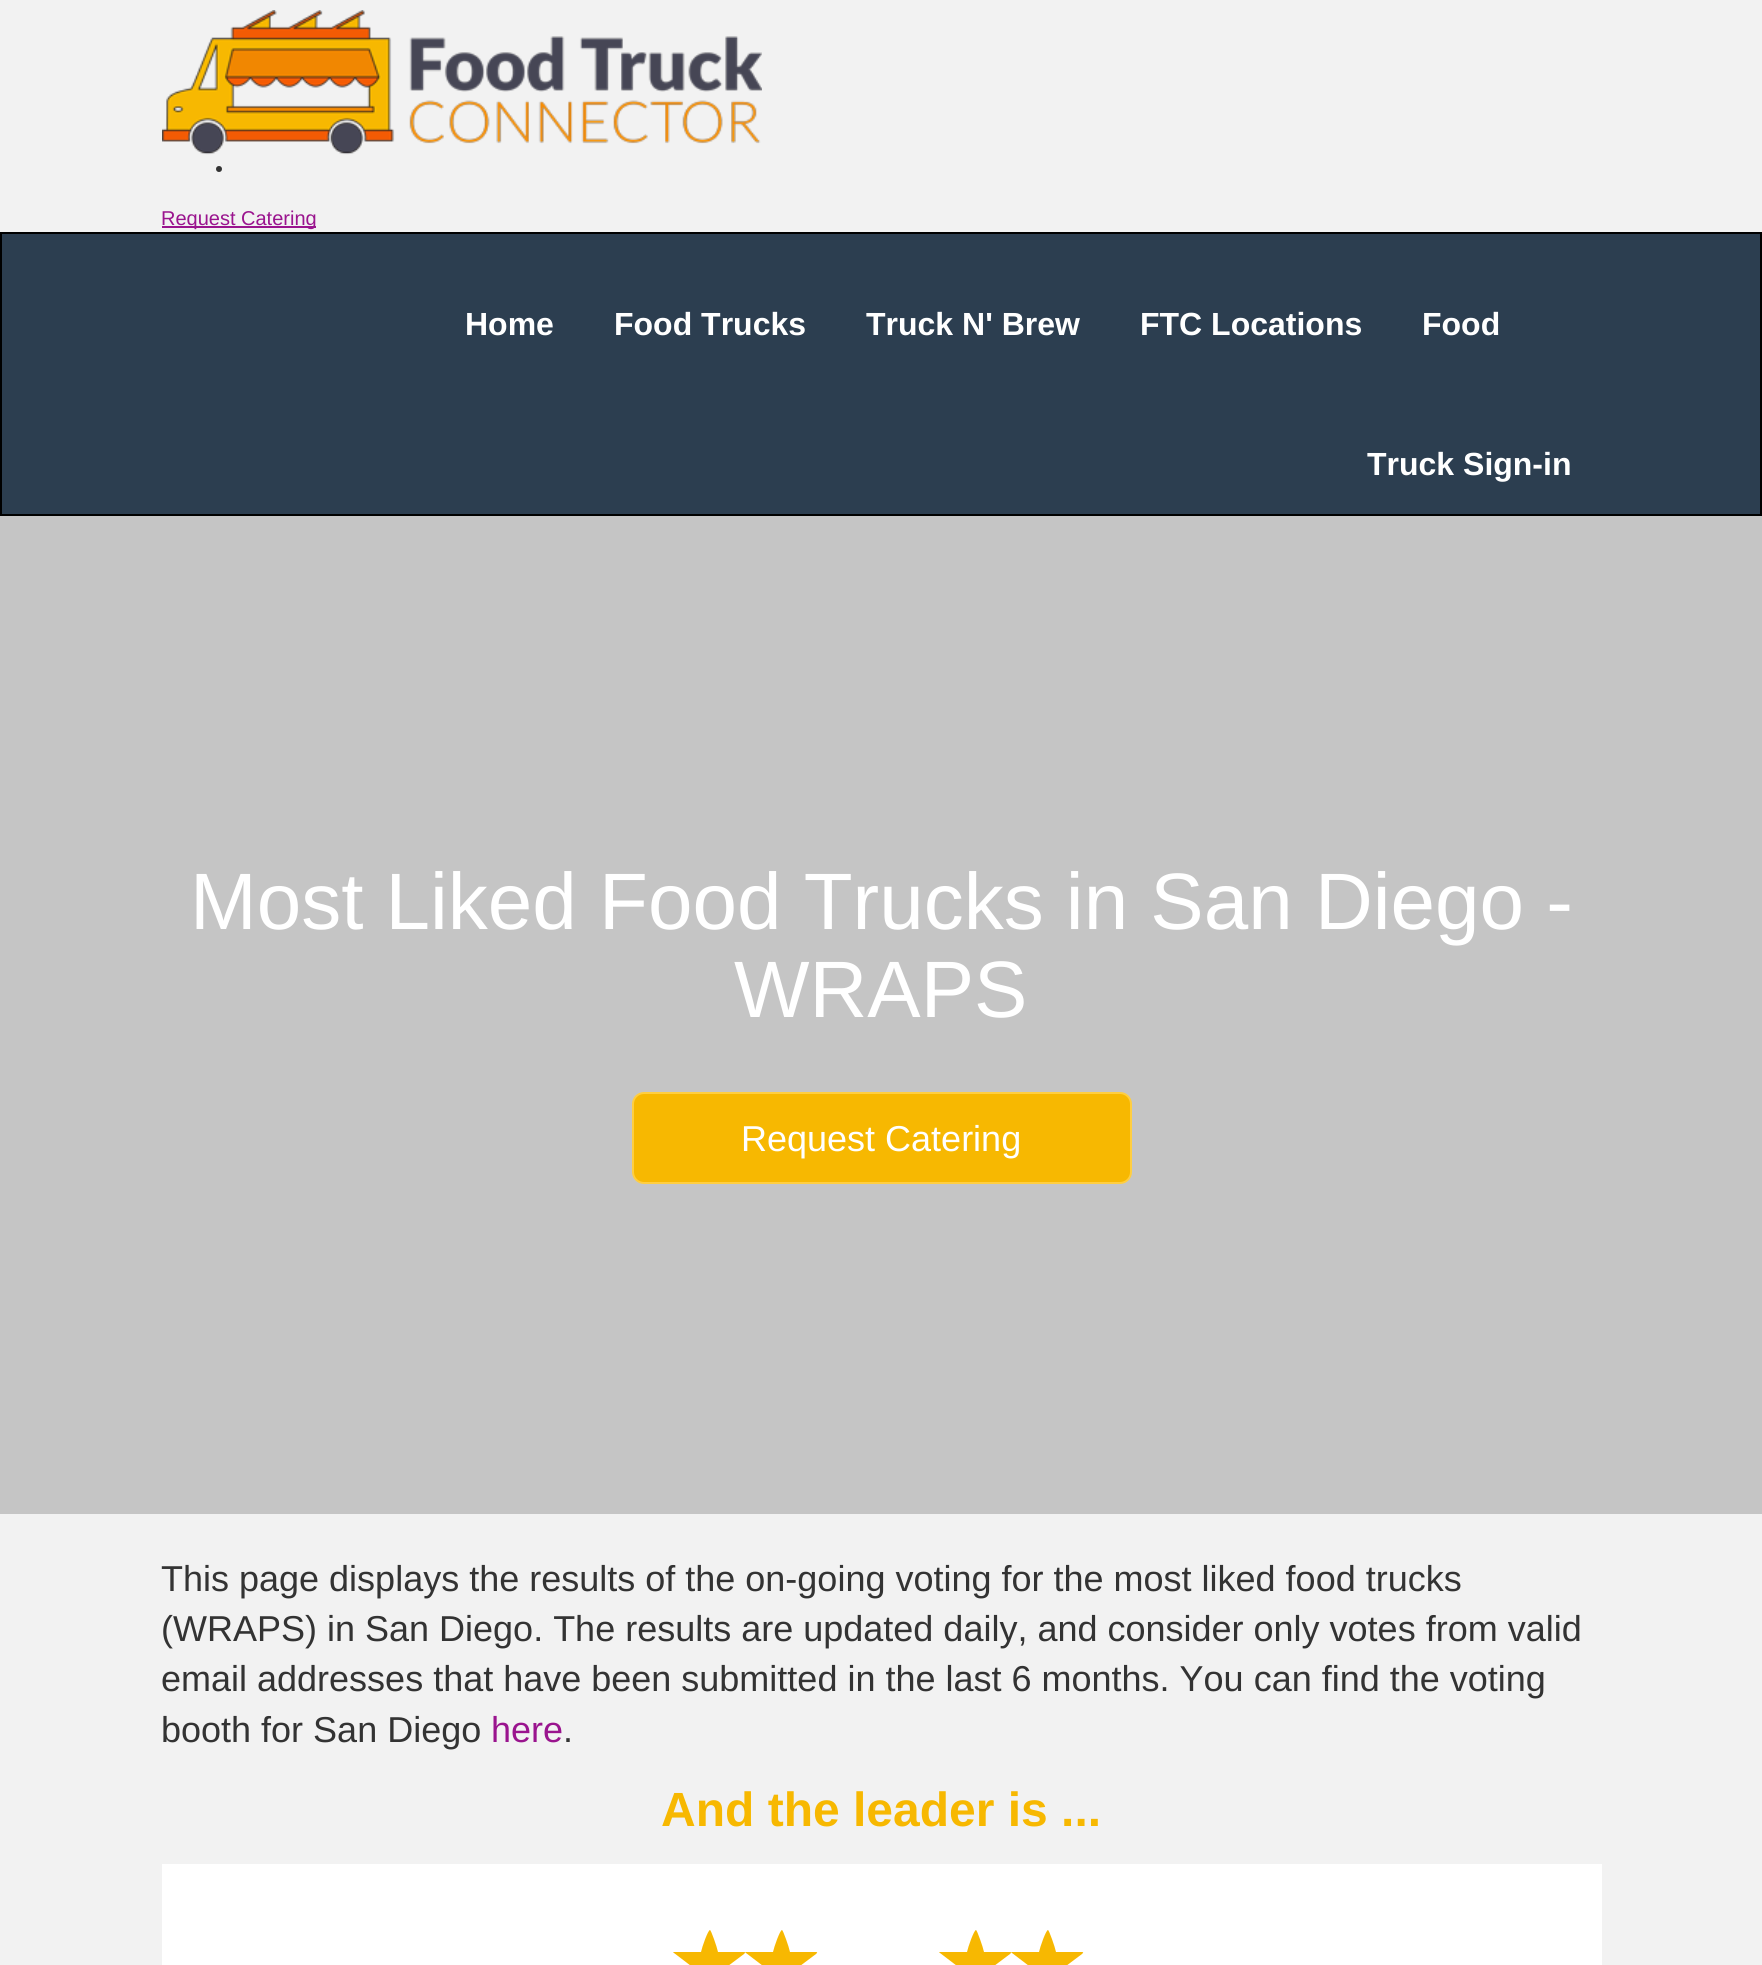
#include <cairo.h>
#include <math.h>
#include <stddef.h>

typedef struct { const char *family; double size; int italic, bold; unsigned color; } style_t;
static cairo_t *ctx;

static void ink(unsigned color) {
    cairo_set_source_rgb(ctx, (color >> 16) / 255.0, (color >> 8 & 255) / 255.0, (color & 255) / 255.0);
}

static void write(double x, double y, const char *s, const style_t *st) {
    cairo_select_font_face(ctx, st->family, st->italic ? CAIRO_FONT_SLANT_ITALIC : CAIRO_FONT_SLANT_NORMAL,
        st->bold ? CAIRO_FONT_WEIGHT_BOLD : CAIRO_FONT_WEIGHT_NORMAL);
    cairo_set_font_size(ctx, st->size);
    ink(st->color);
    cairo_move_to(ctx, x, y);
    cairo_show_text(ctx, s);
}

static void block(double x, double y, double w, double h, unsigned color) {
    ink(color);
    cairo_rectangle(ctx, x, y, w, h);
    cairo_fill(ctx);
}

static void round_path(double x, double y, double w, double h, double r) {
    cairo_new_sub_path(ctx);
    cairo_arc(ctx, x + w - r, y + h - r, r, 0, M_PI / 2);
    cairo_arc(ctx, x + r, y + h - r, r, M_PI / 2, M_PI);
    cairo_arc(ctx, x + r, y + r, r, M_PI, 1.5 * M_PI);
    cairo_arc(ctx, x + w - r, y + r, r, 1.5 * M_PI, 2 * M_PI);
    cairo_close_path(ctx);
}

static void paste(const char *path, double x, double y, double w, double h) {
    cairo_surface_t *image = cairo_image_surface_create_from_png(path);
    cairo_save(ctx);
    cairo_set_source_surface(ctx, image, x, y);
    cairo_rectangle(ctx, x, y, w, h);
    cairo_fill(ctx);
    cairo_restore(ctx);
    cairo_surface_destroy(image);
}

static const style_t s1 = {"Liberation Sans", 20, 0, 0, 0x9a148e};
static const style_t s2 = {"Liberation Sans", 32, 0, 1, 0xffffff};
static const style_t s3 = {"Liberation Sans", 80, 0, 0, 0xffffff};
static const style_t s4 = {"Liberation Sans", 36, 0, 0, 0xffffff};
static const style_t s5 = {"Liberation Sans", 36, 0, 0, 0x333333};
static const style_t s6 = {"Liberation Sans", 36, 0, 0, 0x9a148e};
static const style_t s7 = {"Liberation Sans", 48, 0, 1, 0xf7b801};

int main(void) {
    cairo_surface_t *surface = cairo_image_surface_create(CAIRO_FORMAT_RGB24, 1762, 1965);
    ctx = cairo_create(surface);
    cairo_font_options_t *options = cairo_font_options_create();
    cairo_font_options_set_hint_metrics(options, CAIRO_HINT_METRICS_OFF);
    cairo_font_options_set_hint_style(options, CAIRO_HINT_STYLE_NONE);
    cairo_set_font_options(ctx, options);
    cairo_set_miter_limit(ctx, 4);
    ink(0xf2f2f2);
    cairo_paint(ctx);
    paste("pic1.png", 162, 10, 600, 145);
    ink(0x333333);
    cairo_arc(ctx, 219, 169, 3, 0, 2 * M_PI);
    cairo_fill(ctx);
    block(162, 226, 154, 2, 0x9a148e);
    write(161, 225, "Request Catering", &s1);
    ink(0x2c3e50);
    cairo_rectangle(ctx, 1, 233, 1760, 282);
    cairo_fill_preserve(ctx);
    ink(0x000000);
    cairo_stroke(ctx);
    write(465, 335, "Home", &s2);
    write(614, 335, "Food Trucks", &s2);
    write(866, 335, "Truck N' Brew", &s2);
    write(1140, 335, "FTC Locations", &s2);
    write(1422, 335, "Food", &s2);
    write(1367, 475, "Truck Sign-in", &s2);
    block(0, 516, 1762, 998, 0xc5c5c5);
    write(190, 929, "Most Liked Food Trucks in San Diego -", &s3);
    write(734, 1017, "WRAPS", &s3);
    ink(0xf7b801);
    round_path(633, 1093, 498, 90, 11);
    cairo_fill_preserve(ctx);
    ink(0xffce40);
    cairo_stroke(ctx);
    write(741, 1151, "Request Catering", &s4);
    write(161, 1591, "This page displays the results of the on-going voting for the most liked food trucks", &s5);
    write(161, 1641, "(WRAPS) in San Diego. The results are updated daily, and consider only votes from valid", &s5);
    write(161, 1691, "email addresses that have been submitted in the last 6 months. You can find the voting", &s5);
    write(161, 1742, "booth for San Diego", &s5);
    write(491, 1742, "here", &s6);
    write(563, 1742, ".", &s5);
    write(661, 1826, "And the leader is ...", &s7);
    block(162, 1864, 1440, 101, 0xffffff);
    ink(0xf7b801);
    cairo_new_path(ctx);
    cairo_move_to(ctx, 701, 1952);
    cairo_curve_to(ctx, 702, 1947, 708, 1930, 710, 1930);
    cairo_curve_to(ctx, 711, 1930, 717, 1947, 718, 1952);
    cairo_line_to(ctx, 744, 1952);
    cairo_curve_to(ctx, 746, 1952, 745, 1953, 744, 1954);
    cairo_line_to(ctx, 724, 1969);
    cairo_line_to(ctx, 732, 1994);
    cairo_curve_to(ctx, 732, 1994, 731, 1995, 731, 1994);
    cairo_line_to(ctx, 709, 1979);
    cairo_line_to(ctx, 688, 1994);
    cairo_curve_to(ctx, 688, 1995, 687, 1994, 687, 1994);
    cairo_line_to(ctx, 695, 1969);
    cairo_line_to(ctx, 674, 1953);
    cairo_curve_to(ctx, 673, 1953, 673, 1952, 674, 1952);
    cairo_close_path(ctx);
    cairo_fill(ctx);
    cairo_new_path(ctx);
    cairo_move_to(ctx, 773, 1952);
    cairo_curve_to(ctx, 774, 1947, 780, 1930, 782, 1930);
    cairo_curve_to(ctx, 783, 1930, 789, 1947, 790, 1952);
    cairo_line_to(ctx, 816, 1952);
    cairo_curve_to(ctx, 818, 1952, 817, 1953, 816, 1954);
    cairo_line_to(ctx, 796, 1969);
    cairo_line_to(ctx, 804, 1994);
    cairo_curve_to(ctx, 804, 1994, 803, 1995, 803, 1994);
    cairo_line_to(ctx, 781, 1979);
    cairo_line_to(ctx, 760, 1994);
    cairo_curve_to(ctx, 760, 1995, 759, 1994, 759, 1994);
    cairo_line_to(ctx, 767, 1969);
    cairo_line_to(ctx, 746, 1953);
    cairo_curve_to(ctx, 745, 1953, 745, 1952, 746, 1952);
    cairo_close_path(ctx);
    cairo_fill(ctx);
    cairo_new_path(ctx);
    cairo_move_to(ctx, 967, 1952);
    cairo_curve_to(ctx, 968, 1947, 974, 1930, 976, 1930);
    cairo_curve_to(ctx, 977, 1930, 983, 1947, 984, 1952);
    cairo_line_to(ctx, 1010, 1952);
    cairo_curve_to(ctx, 1012, 1952, 1011, 1953, 1010, 1954);
    cairo_line_to(ctx, 990, 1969);
    cairo_line_to(ctx, 998, 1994);
    cairo_curve_to(ctx, 998, 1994, 997, 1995, 997, 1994);
    cairo_line_to(ctx, 975, 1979);
    cairo_line_to(ctx, 954, 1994);
    cairo_curve_to(ctx, 954, 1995, 953, 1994, 953, 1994);
    cairo_line_to(ctx, 961, 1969);
    cairo_line_to(ctx, 940, 1953);
    cairo_curve_to(ctx, 939, 1953, 939, 1952, 940, 1952);
    cairo_close_path(ctx);
    cairo_fill(ctx);
    cairo_new_path(ctx);
    cairo_move_to(ctx, 1039, 1952);
    cairo_curve_to(ctx, 1040, 1947, 1046, 1930, 1048, 1930);
    cairo_curve_to(ctx, 1049, 1930, 1055, 1947, 1056, 1952);
    cairo_line_to(ctx, 1082, 1952);
    cairo_curve_to(ctx, 1084, 1952, 1083, 1953, 1082, 1954);
    cairo_line_to(ctx, 1062, 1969);
    cairo_line_to(ctx, 1070, 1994);
    cairo_curve_to(ctx, 1070, 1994, 1069, 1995, 1069, 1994);
    cairo_line_to(ctx, 1047, 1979);
    cairo_line_to(ctx, 1026, 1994);
    cairo_curve_to(ctx, 1026, 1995, 1025, 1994, 1025, 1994);
    cairo_line_to(ctx, 1033, 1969);
    cairo_line_to(ctx, 1012, 1953);
    cairo_curve_to(ctx, 1011, 1953, 1011, 1952, 1012, 1952);
    cairo_close_path(ctx);
    cairo_fill(ctx);
    cairo_surface_write_to_png(surface, "screenshot.png");
    cairo_font_options_destroy(options);
    cairo_destroy(ctx);
    cairo_surface_destroy(surface);
    return 0;
}
